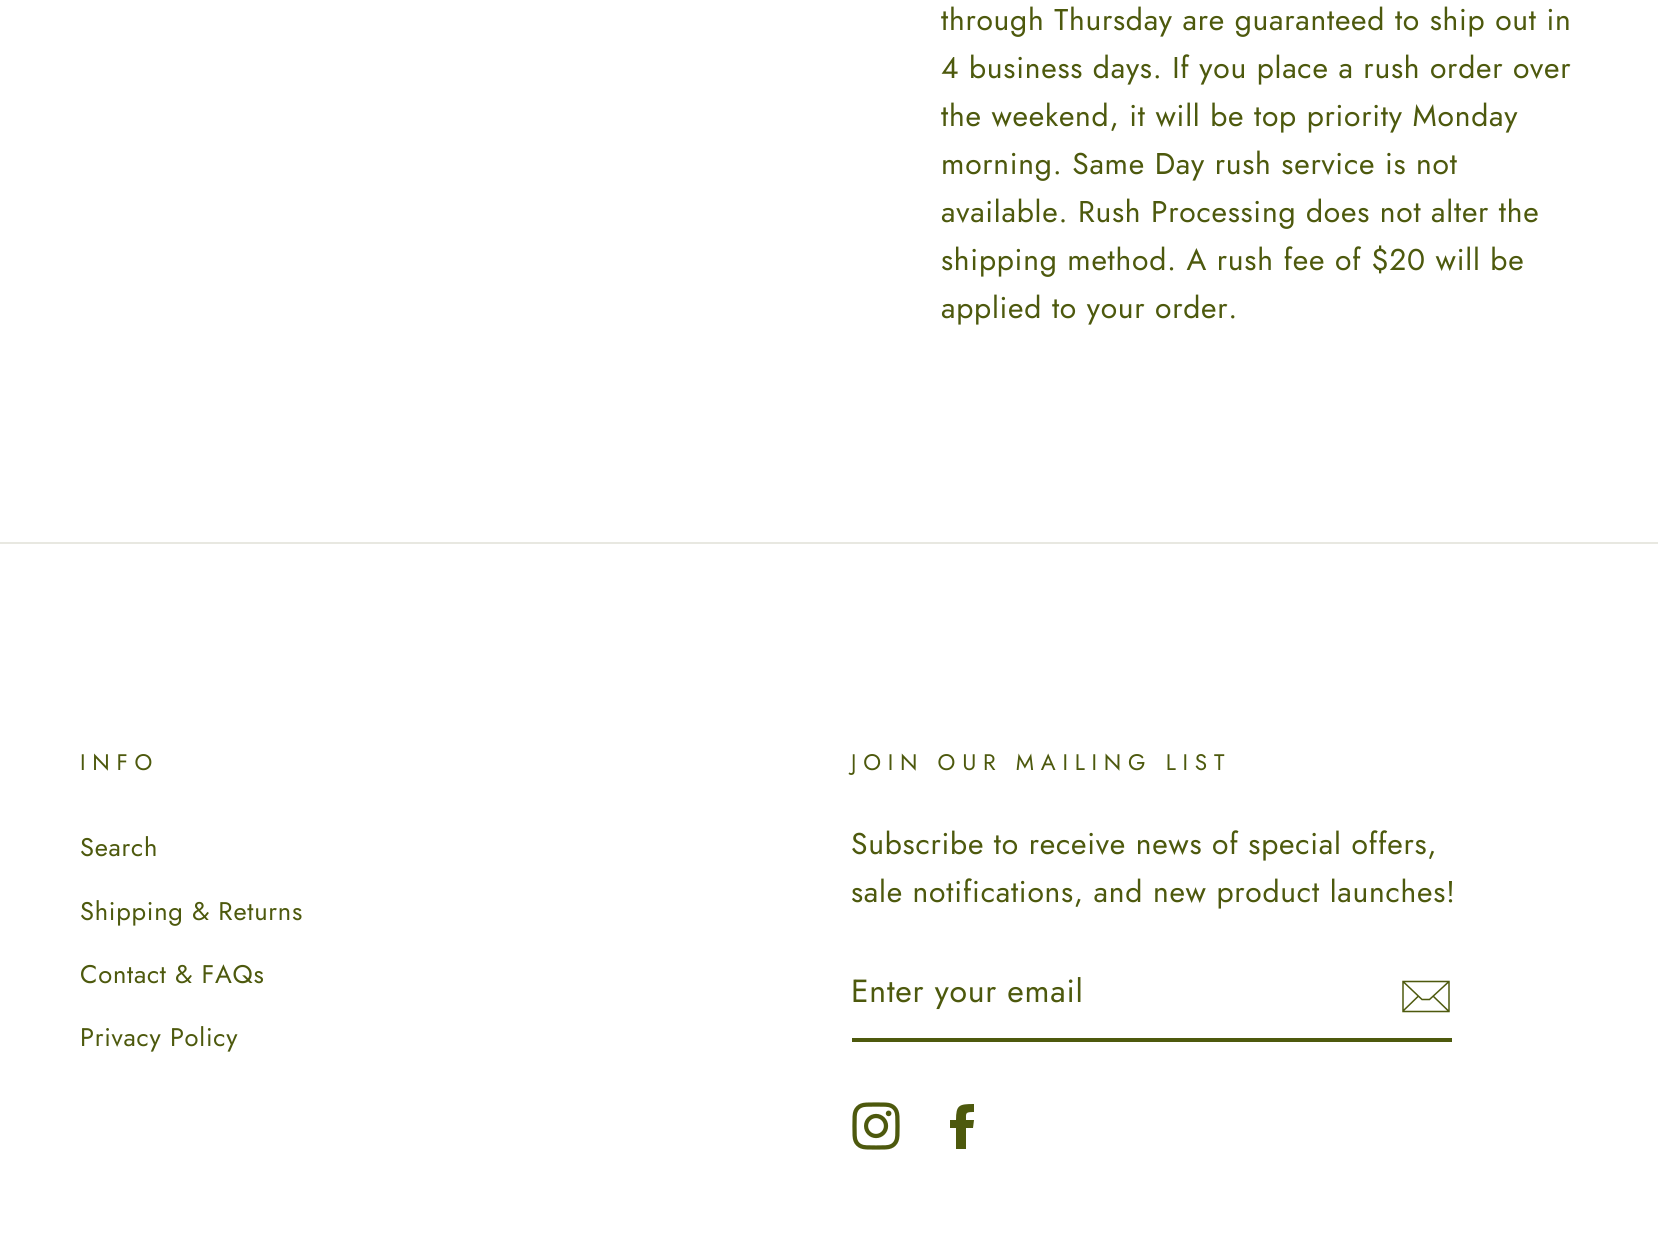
#include <cairo.h>
#include <math.h>
#include <stddef.h>

static cairo_t *ctx;

static void ink(unsigned color) {
    cairo_set_source_rgb(ctx, (color >> 16) / 255.0, (color >> 8 & 255) / 255.0, (color & 255) / 255.0);
}

static void write_spaced(double x, double y, const char *s, double letter, double word) {
    cairo_move_to(ctx, x, y);
    while (*s) {
        char ch[5] = {0};
        int n = 0;
        do ch[n++] = *s++; while ((*s & 0xC0) == 0x80);
        cairo_show_text(ctx, ch);
        cairo_rel_move_to(ctx, letter + word * (*ch == ' '), 0);
    }
}

static void block(double x, double y, double w, double h, unsigned color) {
    ink(color);
    cairo_rectangle(ctx, x, y, w, h);
    cairo_fill(ctx);
}

static void paste(const char *path, double x, double y, double w, double h) {
    cairo_surface_t *image = cairo_image_surface_create_from_png(path);
    cairo_save(ctx);
    cairo_set_source_surface(ctx, image, x, y);
    cairo_rectangle(ctx, x, y, w, h);
    cairo_fill(ctx);
    cairo_restore(ctx);
    cairo_surface_destroy(image);
}

int main(void) {
    cairo_surface_t *surface = cairo_image_surface_create(CAIRO_FORMAT_RGB24, 1658, 1256);
    ctx = cairo_create(surface);
    cairo_font_options_t *options = cairo_font_options_create();
    cairo_font_options_set_hint_metrics(options, CAIRO_HINT_METRICS_OFF);
    cairo_font_options_set_hint_style(options, CAIRO_HINT_STYLE_NONE);
    cairo_set_font_options(ctx, options);
    cairo_set_miter_limit(ctx, 4);
    ink(0xffffff);
    cairo_paint(ctx);
    cairo_select_font_face(ctx, "Jost", CAIRO_FONT_SLANT_NORMAL, CAIRO_FONT_WEIGHT_NORMAL);
    cairo_set_font_size(ctx, 30);
    ink(0x4d590d);
    write_spaced(941, 30, "through Thursday are guaranteed to ship out in", 0.75, 0);
    write_spaced(941, 78, "4 business days. If you place a rush order over", 0.75, 0);
    write_spaced(941, 126, "the weekend, it will be top priority Monday", 0.75, 0);
    write_spaced(941, 174, "morning. Same Day rush service is not", 0.75, 0);
    write_spaced(941, 222, "available. Rush Processing does not alter the", 0.75, 0);
    write_spaced(941, 270, "shipping method. A rush fee of $20 will be", 0.75, 0);
    write_spaced(941, 318, "applied to your order.", 0.75, 0);
    block(0, 542, 1658, 2, 0xe8e8e1);
    cairo_set_font_size(ctx, 22.5);
    ink(0x4d590d);
    write_spaced(80, 770, "INFO", 6.75, 0);
    cairo_set_font_size(ctx, 25.5);
    write_spaced(80, 856, "Search", 0.75, 0);
    write_spaced(80, 920, "Shipping & Returns", 0.75, 0);
    write_spaced(80, 983, "Contact & FAQs", 0.75, 0);
    write_spaced(80, 1046, "Privacy Policy", 0.75, 0);
    cairo_set_font_size(ctx, 22.5);
    write_spaced(851, 770, "JOIN OUR MAILING LIST", 6.75, 0);
    cairo_set_font_size(ctx, 30);
    write_spaced(851, 854, "Subscribe to receive news of special offers,", 0.75, 0);
    write_spaced(851, 902, "sale notifications, and new product launches!", 0.75, 0);
    block(852, 1038, 600, 4, 0x4d590d);
    cairo_set_font_size(ctx, 32);
    write_spaced(851, 1002, "Enter your email", 0.75, 0);
    cairo_new_path(ctx);
    cairo_move_to(ctx, 1449, 1011.5);
    cairo_line_to(ctx, 1403, 1011.5);
    cairo_line_to(ctx, 1403, 981.5);
    cairo_line_to(ctx, 1449, 981.5);
    cairo_close_path(ctx);
    cairo_move_to(ctx, 1403, 981.5);
    cairo_line_to(ctx, 1422, 999.5);
    cairo_line_to(ctx, 1429.5, 999.5);
    cairo_line_to(ctx, 1449, 981.5);
    cairo_move_to(ctx, 1418.5, 996);
    cairo_line_to(ctx, 1403, 1011);
    cairo_move_to(ctx, 1449, 1011.5);
    cairo_line_to(ctx, 1433, 996);
    cairo_set_line_width(ctx, 1.5);
    cairo_stroke(ctx);
    paste("pic1.png", 852, 1102, 48, 48);
    cairo_new_path(ctx);
    cairo_move_to(ctx, 966, 1149);
    cairo_line_to(ctx, 966, 1128);
    cairo_line_to(ctx, 973, 1128);
    cairo_line_to(ctx, 974, 1120);
    cairo_line_to(ctx, 966, 1120);
    cairo_curve_to(ctx, 966, 1113, 965, 1112, 974, 1112);
    cairo_line_to(ctx, 974, 1104);
    cairo_curve_to(ctx, 959, 1104, 956, 1105, 956, 1120);
    cairo_line_to(ctx, 950, 1120);
    cairo_line_to(ctx, 950, 1128);
    cairo_line_to(ctx, 956, 1128);
    cairo_line_to(ctx, 956, 1149);
    cairo_close_path(ctx);
    cairo_fill(ctx);
    cairo_surface_write_to_png(surface, "screenshot.png");
    cairo_font_options_destroy(options);
    cairo_destroy(ctx);
    cairo_surface_destroy(surface);
    return 0;
}
